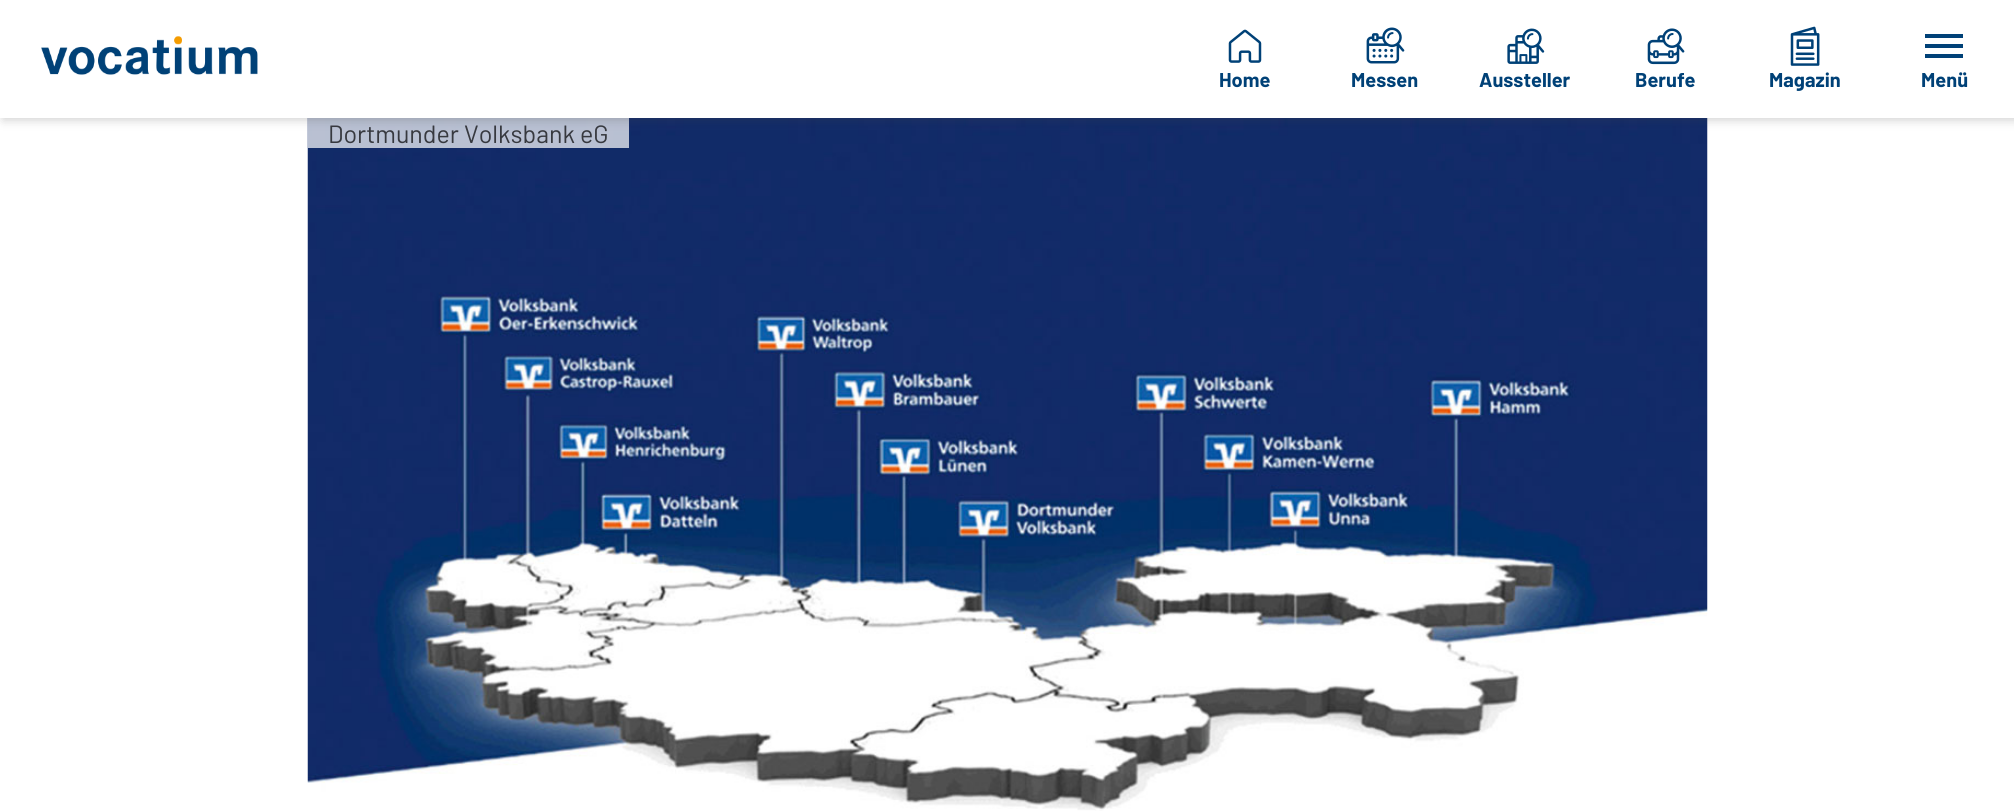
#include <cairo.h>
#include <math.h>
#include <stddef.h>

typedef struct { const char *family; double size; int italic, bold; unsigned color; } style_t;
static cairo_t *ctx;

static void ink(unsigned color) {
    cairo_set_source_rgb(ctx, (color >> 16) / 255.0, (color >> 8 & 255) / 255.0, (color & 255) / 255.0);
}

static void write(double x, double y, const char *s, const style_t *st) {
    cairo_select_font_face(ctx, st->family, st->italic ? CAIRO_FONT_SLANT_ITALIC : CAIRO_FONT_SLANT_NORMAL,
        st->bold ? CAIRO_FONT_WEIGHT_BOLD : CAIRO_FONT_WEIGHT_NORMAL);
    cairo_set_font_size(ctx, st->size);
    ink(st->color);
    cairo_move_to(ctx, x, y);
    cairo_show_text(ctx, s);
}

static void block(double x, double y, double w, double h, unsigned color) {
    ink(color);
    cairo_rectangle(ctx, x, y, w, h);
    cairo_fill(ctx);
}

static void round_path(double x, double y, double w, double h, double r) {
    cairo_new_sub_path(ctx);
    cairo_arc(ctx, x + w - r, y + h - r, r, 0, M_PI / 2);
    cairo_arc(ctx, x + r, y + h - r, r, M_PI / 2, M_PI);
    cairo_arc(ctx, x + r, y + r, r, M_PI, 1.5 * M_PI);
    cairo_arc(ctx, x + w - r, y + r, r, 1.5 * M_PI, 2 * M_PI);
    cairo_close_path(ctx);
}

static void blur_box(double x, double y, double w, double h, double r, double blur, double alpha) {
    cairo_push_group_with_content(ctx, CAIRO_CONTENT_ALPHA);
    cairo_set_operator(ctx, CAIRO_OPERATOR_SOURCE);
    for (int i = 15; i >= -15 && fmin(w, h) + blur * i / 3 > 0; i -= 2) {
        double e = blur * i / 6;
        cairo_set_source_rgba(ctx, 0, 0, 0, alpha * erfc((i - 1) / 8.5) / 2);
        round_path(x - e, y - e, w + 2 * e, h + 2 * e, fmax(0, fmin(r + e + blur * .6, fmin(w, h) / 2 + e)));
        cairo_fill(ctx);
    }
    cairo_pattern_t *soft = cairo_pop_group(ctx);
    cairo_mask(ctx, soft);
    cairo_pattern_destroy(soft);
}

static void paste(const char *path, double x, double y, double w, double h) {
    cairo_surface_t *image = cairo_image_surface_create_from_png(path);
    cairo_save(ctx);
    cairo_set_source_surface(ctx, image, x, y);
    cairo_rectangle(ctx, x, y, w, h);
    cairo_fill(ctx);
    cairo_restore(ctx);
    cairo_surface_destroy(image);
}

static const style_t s1 = {"Barlow", 20, 0, 1, 0x004177};
static const style_t s2 = {"Barlow", 25, 0, 0, 0x37393f};

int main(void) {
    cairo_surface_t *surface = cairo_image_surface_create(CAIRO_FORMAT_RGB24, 2014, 811);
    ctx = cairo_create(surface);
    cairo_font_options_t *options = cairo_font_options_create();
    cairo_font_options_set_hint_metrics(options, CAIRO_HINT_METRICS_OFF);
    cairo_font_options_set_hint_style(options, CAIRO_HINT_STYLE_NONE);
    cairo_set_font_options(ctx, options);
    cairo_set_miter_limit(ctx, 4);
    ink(0xffffff);
    cairo_paint(ctx);
    paste("pic7.png", 307, 118, 1401, 693);
    cairo_set_source_rgba(ctx, 1, 1, 1, 0.7);
    cairo_rectangle(ctx, 308, 118, 321, 30);
    cairo_fill(ctx);
    ink(0x444444);
    blur_box(3, 3, 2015, 117, 0, 5, 0.25);
    block(0, 0, 2014, 118, 0xffffff);
    paste("pic1.png", 41, 36, 217, 39);
    paste("pic2.png", 1228, 29, 34, 34);
    write(1219, 87, "Home", &s1);
    paste("pic3.png", 1366, 27, 39, 37);
    write(1351, 87, "Messen", &s1);
    paste("pic4.png", 1507, 28, 38, 36);
    write(1479, 87, "Aussteller", &s1);
    paste("pic5.png", 1647, 28, 38, 37);
    write(1635, 87, "Berufe", &s1);
    paste("pic6.png", 1790, 26, 30, 40);
    write(1769, 87, "Magazin", &s1);
    block(1925, 34, 38, 4, 0x004177);
    block(1925, 44, 38, 4, 0x004177);
    block(1925, 54, 38, 4, 0x004177);
    write(1921, 87, "Menü", &s1);
    write(328, 143, "Dortmunder Volksbank eG", &s2);
    cairo_surface_write_to_png(surface, "screenshot.png");
    cairo_font_options_destroy(options);
    cairo_destroy(ctx);
    cairo_surface_destroy(surface);
    return 0;
}
